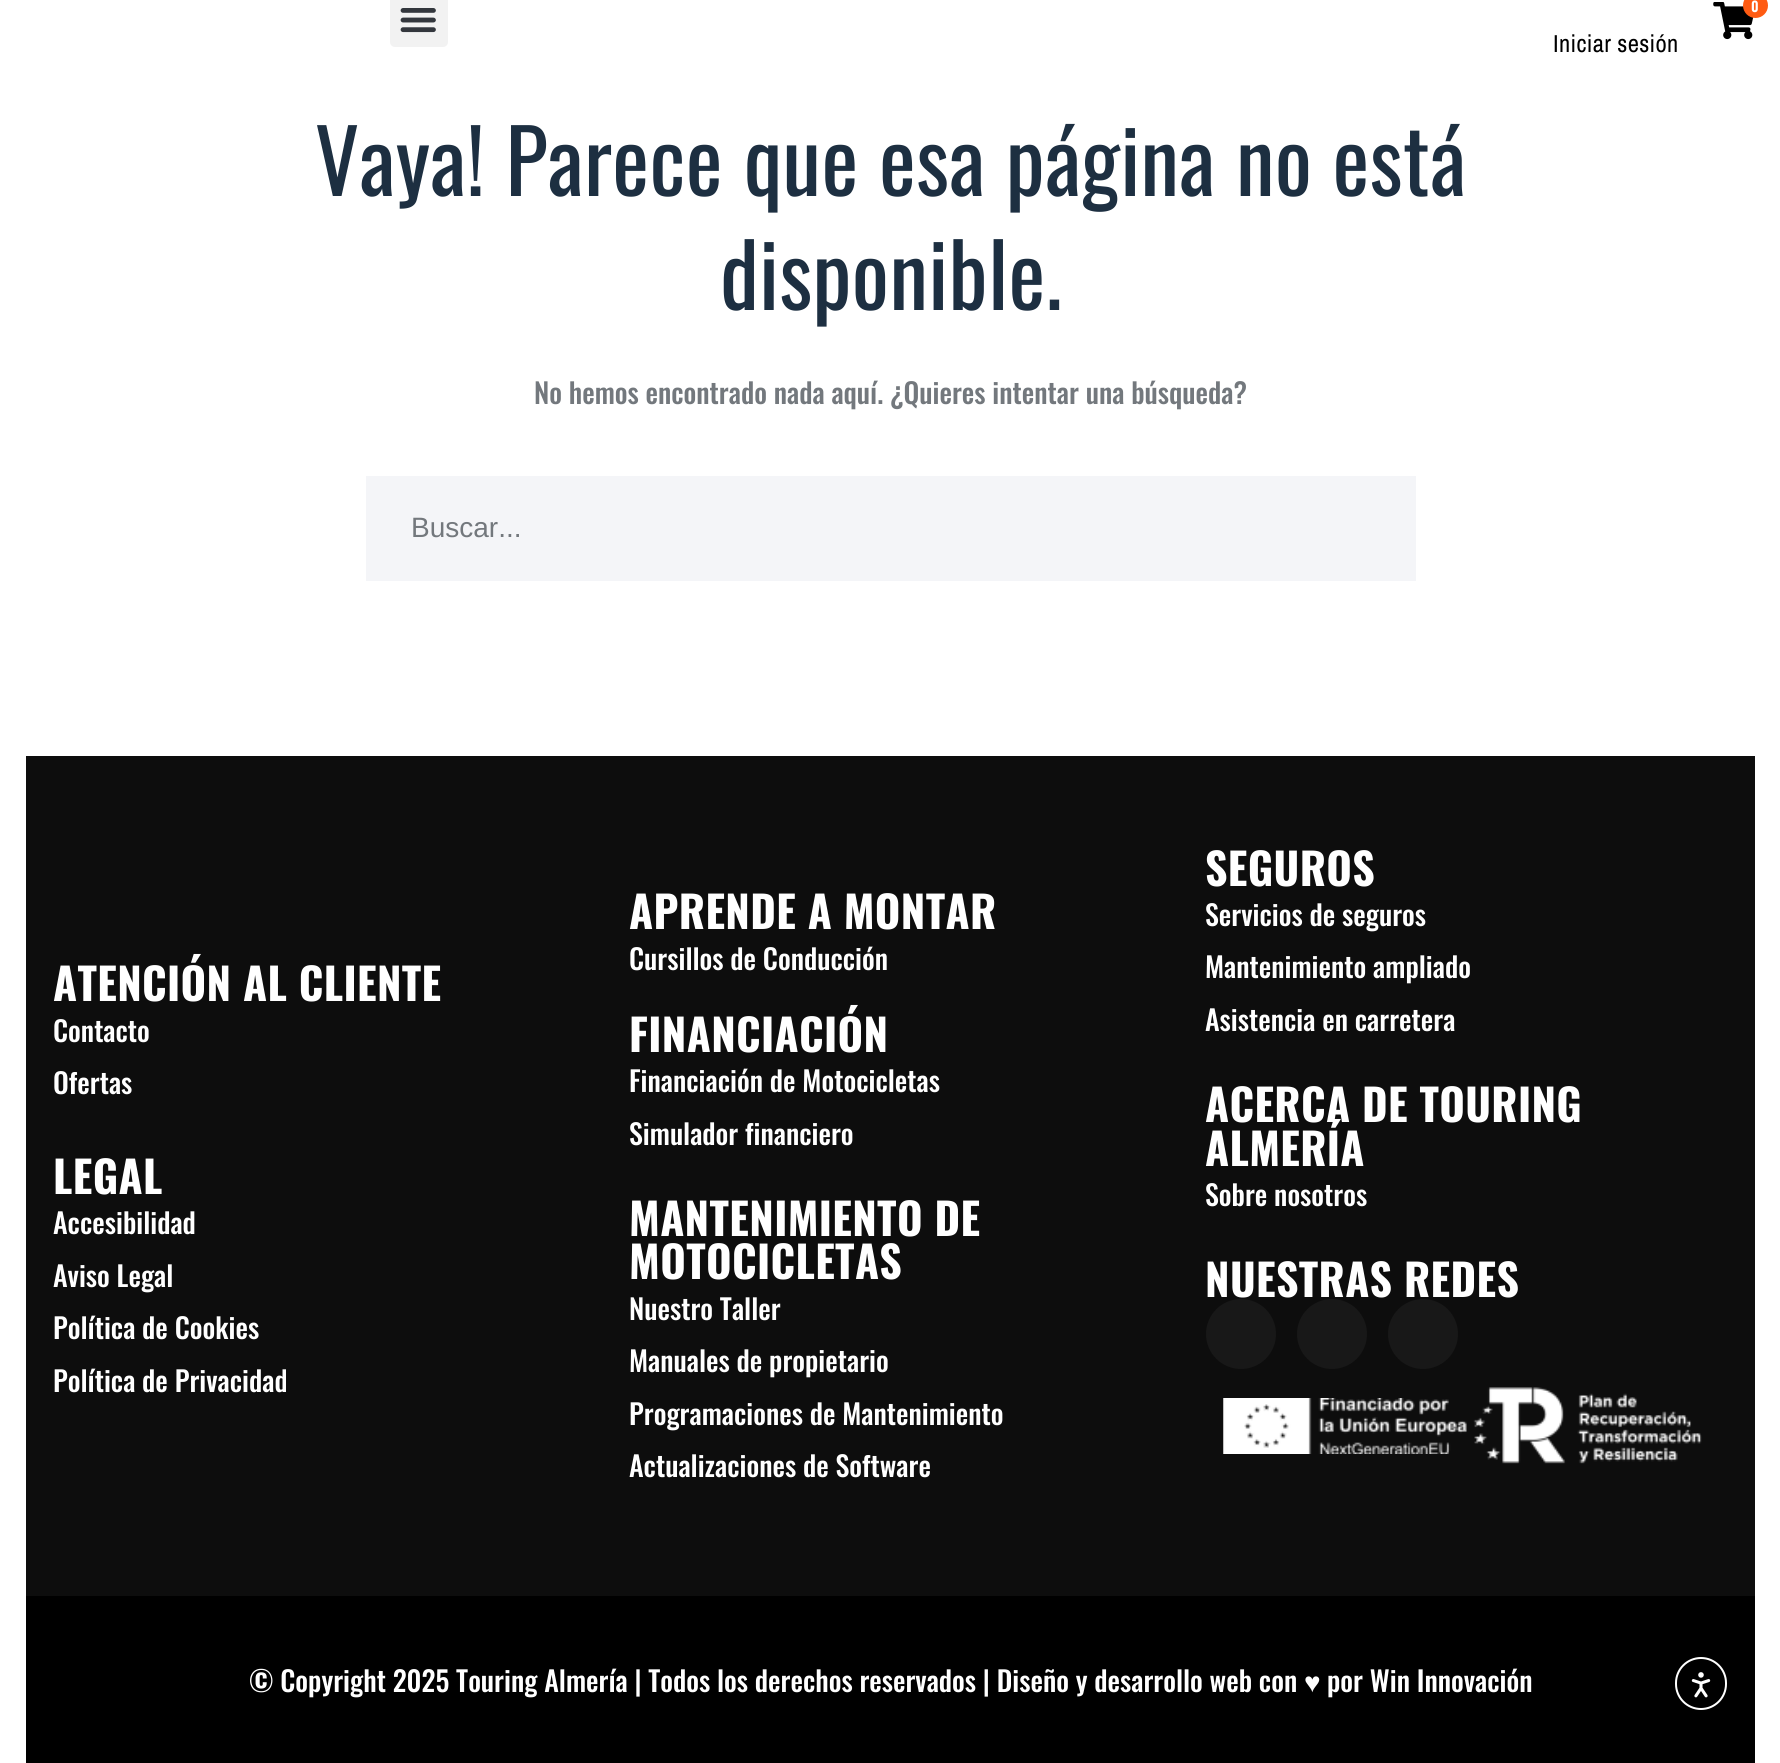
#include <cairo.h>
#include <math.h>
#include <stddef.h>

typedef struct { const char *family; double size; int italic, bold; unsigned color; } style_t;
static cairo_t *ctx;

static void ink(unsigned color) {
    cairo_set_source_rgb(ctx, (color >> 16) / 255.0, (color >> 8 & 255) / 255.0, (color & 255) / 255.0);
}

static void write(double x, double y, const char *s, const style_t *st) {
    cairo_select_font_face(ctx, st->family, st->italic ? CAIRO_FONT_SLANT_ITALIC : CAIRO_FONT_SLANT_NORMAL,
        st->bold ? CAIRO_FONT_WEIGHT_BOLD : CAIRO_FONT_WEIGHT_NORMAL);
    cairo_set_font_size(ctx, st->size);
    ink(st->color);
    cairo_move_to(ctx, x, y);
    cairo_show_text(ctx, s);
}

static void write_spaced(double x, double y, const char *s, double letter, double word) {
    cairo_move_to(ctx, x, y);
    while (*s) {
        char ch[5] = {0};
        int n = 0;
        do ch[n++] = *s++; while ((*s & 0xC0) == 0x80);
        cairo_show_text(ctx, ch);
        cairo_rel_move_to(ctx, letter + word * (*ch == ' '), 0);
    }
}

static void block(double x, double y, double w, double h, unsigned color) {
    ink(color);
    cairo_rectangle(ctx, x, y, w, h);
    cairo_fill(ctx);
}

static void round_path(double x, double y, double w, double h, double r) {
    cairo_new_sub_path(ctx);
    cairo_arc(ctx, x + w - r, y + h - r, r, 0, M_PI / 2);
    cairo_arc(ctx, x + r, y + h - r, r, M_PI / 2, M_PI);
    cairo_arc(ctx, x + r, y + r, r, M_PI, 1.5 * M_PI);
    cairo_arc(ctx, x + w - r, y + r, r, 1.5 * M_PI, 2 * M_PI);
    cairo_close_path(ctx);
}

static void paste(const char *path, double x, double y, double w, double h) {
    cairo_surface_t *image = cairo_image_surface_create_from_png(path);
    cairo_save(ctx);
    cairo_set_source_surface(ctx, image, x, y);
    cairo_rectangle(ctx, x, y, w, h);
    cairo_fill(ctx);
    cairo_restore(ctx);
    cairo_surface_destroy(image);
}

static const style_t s1 = {"Oswald SemiBold", 14, 0, 0, 0xffffff};
static const style_t s2 = {"Oswald Medium", 28, 0, 0, 0x73787d};
static const style_t s3 = {"Liberation Sans", 28, 0, 0, 0x73787d};
static const style_t s4 = {"Oswald Medium", 28, 0, 0, 0xffffff};
static const style_t s5 = {"Liberation Serif", 28, 0, 0, 0xffffff};

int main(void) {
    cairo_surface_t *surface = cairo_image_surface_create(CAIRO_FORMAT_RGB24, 1780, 1763);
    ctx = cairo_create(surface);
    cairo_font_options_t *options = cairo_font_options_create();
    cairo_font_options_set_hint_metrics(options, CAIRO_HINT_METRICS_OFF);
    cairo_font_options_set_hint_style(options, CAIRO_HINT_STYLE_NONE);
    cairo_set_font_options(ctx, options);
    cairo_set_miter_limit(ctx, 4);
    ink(0xffffff);
    cairo_paint(ctx);
    ink(0xf2f2f2);
    round_path(390, -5, 58, 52, 5);
    cairo_fill(ctx);
    paste("pic1.png", 400, 8, 36, 25);
    paste("pic2.png", 1713, 2, 41, 38);
    ink(0xff5b12);
    cairo_arc(ctx, 1755.5, 5.5, 12.5, 0, 2 * M_PI);
    cairo_fill(ctx);
    write(1751, 12, "0", &s1);
    cairo_select_font_face(ctx, "Archivo Narrow", CAIRO_FONT_SLANT_NORMAL, CAIRO_FONT_WEIGHT_NORMAL);
    cairo_set_font_size(ctx, 24.5);
    ink(0x000000);
    write_spaced(1553, 52, "Iniciar sesión", 0.35, 0);
    cairo_select_font_face(ctx, "Oswald", CAIRO_FONT_SLANT_NORMAL, CAIRO_FONT_WEIGHT_NORMAL);
    cairo_set_font_size(ctx, 87.5);
    ink(0x1d2f41);
    write_spaced(315, 196, "Vaya! Parece que esa página no está", 0.35, 0);
    write_spaced(720, 310, "disponible.", 0.35, 0);
    write(534, 404, "No hemos encontrado nada aquí. ¿Quieres intentar una búsqueda?", &s2);
    block(366, 476, 1050, 105, 0xf4f5f8);
    write(411, 537, "Buscar...", &s3);
    block(26, 756, 1729, 840, 0x0d0d0d);
    cairo_select_font_face(ctx, "Oswald", CAIRO_FONT_SLANT_NORMAL, CAIRO_FONT_WEIGHT_BOLD);
    cairo_set_font_size(ctx, 43.75);
    ink(0xffffff);
    write_spaced(53, 1001, "ATENCIÓN AL CLIENTE", 0.35, 0);
    write(53, 1042, "Contacto", &s4);
    write(53, 1094, "Ofertas", &s4);
    cairo_select_font_face(ctx, "Oswald", CAIRO_FONT_SLANT_NORMAL, CAIRO_FONT_WEIGHT_BOLD);
    cairo_set_font_size(ctx, 43.75);
    write_spaced(53, 1194, "LEGAL", 0.35, 0);
    write(53, 1234, "Accesibilidad", &s4);
    write(53, 1287, "Aviso Legal", &s4);
    write(53, 1339, "Política de Cookies", &s4);
    write(53, 1392, "Política de Privacidad", &s4);
    cairo_select_font_face(ctx, "Oswald", CAIRO_FONT_SLANT_NORMAL, CAIRO_FONT_WEIGHT_BOLD);
    cairo_set_font_size(ctx, 43.75);
    write_spaced(629, 929, "APRENDE A MONTAR", 0.35, 0);
    write(629, 970, "Cursillos de Conducción", &s4);
    cairo_select_font_face(ctx, "Oswald", CAIRO_FONT_SLANT_NORMAL, CAIRO_FONT_WEIGHT_BOLD);
    cairo_set_font_size(ctx, 43.75);
    write_spaced(629, 1052, "FINANCIACIÓN", 0.35, 0);
    write(629, 1092, "Financiación de Motocicletas", &s4);
    write(629, 1145, "Simulador financiero", &s4);
    cairo_select_font_face(ctx, "Oswald", CAIRO_FONT_SLANT_NORMAL, CAIRO_FONT_WEIGHT_BOLD);
    cairo_set_font_size(ctx, 43.75);
    write_spaced(629, 1236, "MANTENIMIENTO DE", 0.35, 0);
    write_spaced(629, 1279, "MOTOCICLETAS", 0.35, 0);
    write(629, 1320, "Nuestro Taller", &s4);
    write(629, 1372, "Manuales de propietario", &s4);
    write(629, 1425, "Programaciones de Mantenimiento", &s4);
    write(629, 1477, "Actualizaciones de Software", &s4);
    cairo_select_font_face(ctx, "Oswald", CAIRO_FONT_SLANT_NORMAL, CAIRO_FONT_WEIGHT_BOLD);
    cairo_set_font_size(ctx, 43.75);
    write_spaced(1205, 886, "SEGUROS", 0.35, 0);
    write(1205, 926, "Servicios de seguros", &s4);
    write(1205, 978, "Mantenimiento ampliado", &s4);
    write(1205, 1031, "Asistencia en carretera", &s4);
    cairo_select_font_face(ctx, "Oswald", CAIRO_FONT_SLANT_NORMAL, CAIRO_FONT_WEIGHT_BOLD);
    cairo_set_font_size(ctx, 43.75);
    write_spaced(1205, 1122, "ACERCA DE TOURING", 0.35, 0);
    write_spaced(1205, 1166, "ALMERÍA", 0.35, 0);
    write(1205, 1206, "Sobre nosotros", &s4);
    cairo_select_font_face(ctx, "Oswald", CAIRO_FONT_SLANT_NORMAL, CAIRO_FONT_WEIGHT_BOLD);
    cairo_set_font_size(ctx, 43.75);
    write_spaced(1205, 1297, "NUESTRAS REDES", 0.35, 0);
    ink(0x181818);
    cairo_new_path(ctx);
    cairo_arc(ctx, 1241, 1334, 35, 0, 2 * M_PI);
    cairo_fill(ctx);
    cairo_arc(ctx, 1332, 1334, 35, 0, 2 * M_PI);
    cairo_fill(ctx);
    cairo_arc(ctx, 1423, 1334, 35, 0, 2 * M_PI);
    cairo_fill(ctx);
    paste("pic3.png", 1223, 1398, 244, 56);
    paste("pic4.png", 1473, 1387, 229, 77);
    block(26, 1596, 1729, 167, 0x000000);
    write(249, 1692, "© Copyright 2025 Touring Almería | Todos los derechos reservados | Diseño y desarrollo web con", &s4);
    write(1304, 1692, "♥", &s5);
    write(1327, 1692, "por Win Innovación", &s4);
    round_path(1676, 1658, 50, 51, 25);
    cairo_stroke(ctx);
    paste("pic5.png", 1691, 1672, 20, 26);
    cairo_surface_write_to_png(surface, "screenshot.png");
    cairo_font_options_destroy(options);
    cairo_destroy(ctx);
    cairo_surface_destroy(surface);
    return 0;
}
